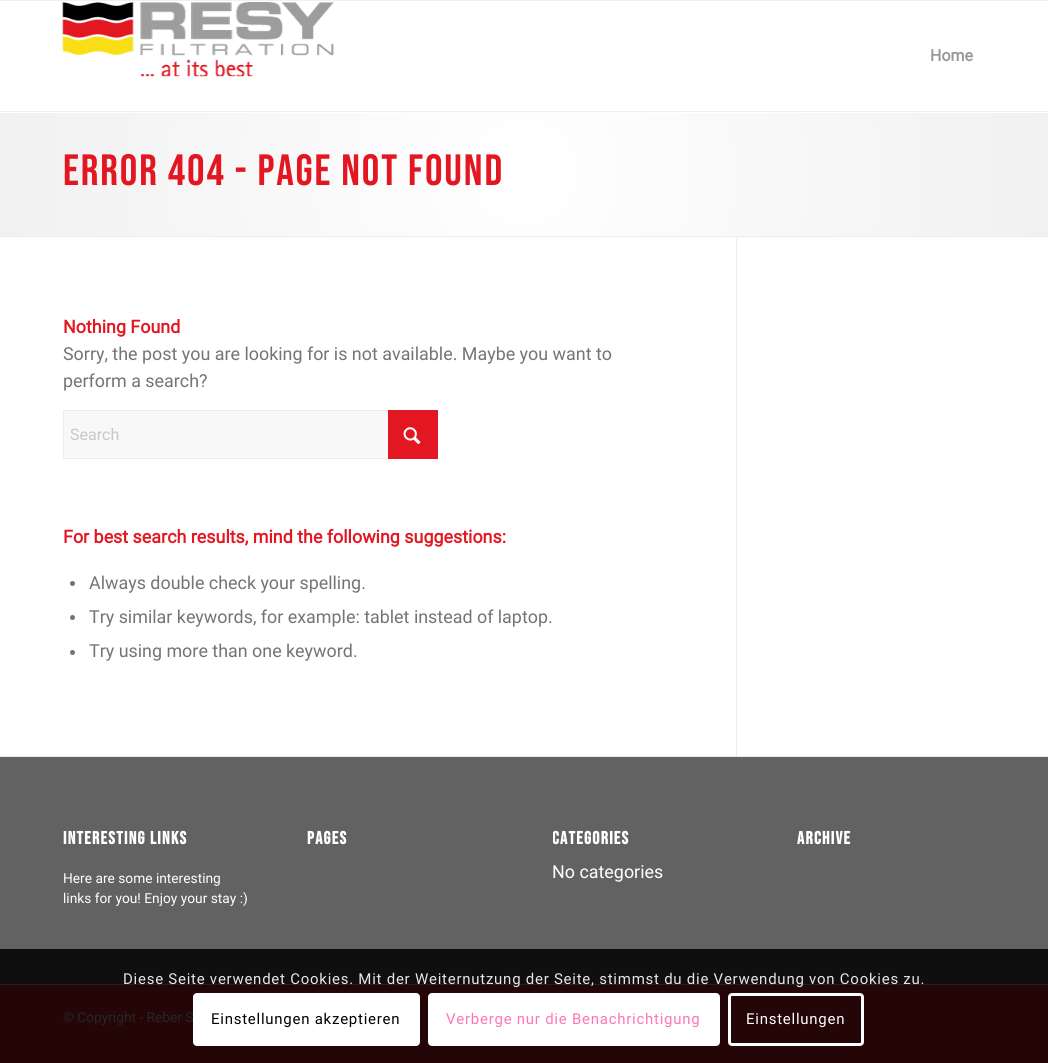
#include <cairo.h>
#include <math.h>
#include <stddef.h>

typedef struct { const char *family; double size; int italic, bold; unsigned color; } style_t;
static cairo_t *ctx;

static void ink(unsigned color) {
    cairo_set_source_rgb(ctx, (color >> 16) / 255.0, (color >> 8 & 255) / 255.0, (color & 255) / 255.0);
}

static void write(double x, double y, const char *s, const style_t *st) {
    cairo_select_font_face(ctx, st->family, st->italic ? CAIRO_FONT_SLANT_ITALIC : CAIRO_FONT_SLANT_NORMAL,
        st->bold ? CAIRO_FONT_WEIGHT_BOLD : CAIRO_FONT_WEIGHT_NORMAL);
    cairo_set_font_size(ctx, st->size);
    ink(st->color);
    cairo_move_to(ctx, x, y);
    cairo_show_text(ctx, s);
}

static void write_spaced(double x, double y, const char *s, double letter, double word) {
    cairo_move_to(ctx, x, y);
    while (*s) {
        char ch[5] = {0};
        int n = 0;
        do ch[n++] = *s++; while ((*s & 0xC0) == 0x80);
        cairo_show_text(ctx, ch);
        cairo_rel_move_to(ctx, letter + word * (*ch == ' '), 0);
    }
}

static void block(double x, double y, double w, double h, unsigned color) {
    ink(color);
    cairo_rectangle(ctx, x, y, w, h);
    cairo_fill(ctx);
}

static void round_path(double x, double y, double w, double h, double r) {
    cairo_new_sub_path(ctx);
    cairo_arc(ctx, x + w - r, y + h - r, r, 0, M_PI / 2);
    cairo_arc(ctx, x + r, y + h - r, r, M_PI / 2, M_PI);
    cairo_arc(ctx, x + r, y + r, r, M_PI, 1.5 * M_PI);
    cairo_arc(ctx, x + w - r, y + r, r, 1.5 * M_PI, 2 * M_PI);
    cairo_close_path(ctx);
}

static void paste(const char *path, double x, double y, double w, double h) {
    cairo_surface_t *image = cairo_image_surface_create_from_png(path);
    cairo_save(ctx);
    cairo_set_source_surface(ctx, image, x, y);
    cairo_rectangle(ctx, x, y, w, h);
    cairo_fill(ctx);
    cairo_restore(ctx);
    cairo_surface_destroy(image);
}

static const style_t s1 = {"Roboto", 16, 0, 1, 0x969696};
static const style_t s2 = {"Roboto", 17.9, 0, 1, 0xe31721};
static const style_t s3 = {"Roboto", 17.9, 0, 0, 0x747474};
static const style_t s4 = {"Roboto", 16, 0, 0, 0xc7c7c7};
static const style_t s5 = {"Roboto", 13.75, 0, 0, 0xffffff};
static const style_t s6 = {"Roboto", 17.9, 0, 0, 0xffffff};
static const style_t s7 = {"Roboto", 13.75, 0, 0, 0x262626};

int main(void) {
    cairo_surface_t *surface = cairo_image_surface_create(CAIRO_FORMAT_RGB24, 1048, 1063);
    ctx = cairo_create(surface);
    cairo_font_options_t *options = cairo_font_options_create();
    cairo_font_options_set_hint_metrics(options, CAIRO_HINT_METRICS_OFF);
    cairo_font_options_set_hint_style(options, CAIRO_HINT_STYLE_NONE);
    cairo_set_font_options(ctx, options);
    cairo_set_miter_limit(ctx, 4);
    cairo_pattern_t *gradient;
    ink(0x240606);
    cairo_paint(ctx);
    block(0, 237, 1048, 519, 0xffffff);
    block(0, 1, 1048, 112, 0xffffff);
    block(0, 0, 1048, 1, 0xf2efef);
    block(0, 111, 1048, 1, 0xf2efef);
    paste("pic1.png", 62, 2, 272, 75);
    write(930, 61, "Home", &s1);
    gradient = cairo_pattern_create_radial(524, 173, 0, 524, 173, 528);
    cairo_pattern_add_color_stop_rgba(gradient, 0, 1, 1, 1, 1);
    cairo_pattern_add_color_stop_rgba(gradient, 1, 0.945, 0.945, 0.945, 1);
    cairo_set_source(ctx, gradient);
    cairo_pattern_destroy(gradient);
    cairo_rectangle(ctx, 0, 113, 1048, 123);
    cairo_fill(ctx);
    cairo_select_font_face(ctx, "Bebas Neue", CAIRO_FONT_SLANT_NORMAL, CAIRO_FONT_WEIGHT_NORMAL);
    cairo_set_font_size(ctx, 43.75);
    ink(0xe31721);
    write_spaced(63, 185, "Error 404 - page not found", 1.9, 0);
    block(0, 236, 1048, 1, 0xebebeb);
    block(736, 238, 1, 518, 0xebebeb);
    write(63, 333, "Nothing Found", &s2);
    write(63, 360, "Sorry, the post you are looking for is not available. Maybe you want to", &s3);
    write(63, 387, "perform a search?", &s3);
    block(64, 411, 324, 47, 0xf8f8f8);
    cairo_rectangle(ctx, 63.5, 410.5, 374, 48);
    ink(0xebebeb);
    cairo_set_line_width(ctx, 1);
    cairo_stroke(ctx);
    write(70, 440, "Search", &s4);
    block(388, 410, 50, 49, 0xe31721);
    paste("pic2.png", 403, 427, 18, 17);
    write(63, 543, "For best search results, mind the following suggestions:", &s2);
    ink(0x747474);
    cairo_new_path(ctx);
    cairo_arc(ctx, 72.5, 583.5, 2.5, 0, 2 * M_PI);
    cairo_fill(ctx);
    write(89, 589, "Always double check your spelling.", &s3);
    cairo_new_path(ctx);
    cairo_arc(ctx, 72.5, 617.5, 2.5, 0, 2 * M_PI);
    cairo_fill(ctx);
    write(89, 623, "Try similar keywords, for example: tablet instead of laptop.", &s3);
    cairo_new_path(ctx);
    cairo_arc(ctx, 72.5, 652.5, 2.5, 0, 2 * M_PI);
    cairo_fill(ctx);
    write(89, 657, "Try using more than one keyword.", &s3);
    block(0, 757, 1048, 192, 0x626262);
    block(0, 949, 1048, 35, 0x0f0f0f);
    block(0, 756, 1048, 1, 0xebebeb);
    cairo_select_font_face(ctx, "Bebas Neue", CAIRO_FONT_SLANT_NORMAL, CAIRO_FONT_WEIGHT_BOLD);
    ink(0xffffff);
    write_spaced(63, 844, "INTERESTING LINKS", 1.25, 0);
    write(63, 883, "Here are some interesting", &s5);
    write(63, 903, "links for you! Enjoy your stay :)", &s5);
    cairo_select_font_face(ctx, "Bebas Neue", CAIRO_FONT_SLANT_NORMAL, CAIRO_FONT_WEIGHT_BOLD);
    cairo_set_font_size(ctx, 17.9);
    write_spaced(307, 844, "PAGES", 1.25, 0);
    cairo_save(ctx);
    cairo_rectangle(ctx, 553, 814, 188, 72);
    cairo_clip(ctx);
    write_spaced(552, 844, "CATEGORIES", 1.25, 0);
    cairo_restore(ctx);
    write(552, 878, "No categories", &s6);
    cairo_select_font_face(ctx, "Bebas Neue", CAIRO_FONT_SLANT_NORMAL, CAIRO_FONT_WEIGHT_BOLD);
    write_spaced(797, 844, "ARCHIVE", 1.25, 0);
    block(0, 984, 1048, 1, 0x232323);
    write(63, 1022, "© Copyright - Reber S", &s7);
    cairo_set_font_size(ctx, 15);
    ink(0xe7e7e7);
    write_spaced(123, 984, "Diese Seite verwendet Cookies. Mit der Weiternutzung der Seite, stimmst du die Verwendung von Cookies zu.", 0.75, 0);
    ink(0xffffff);
    round_path(193, 993, 227, 53, 4);
    cairo_fill(ctx);
    ink(0x000000);
    write_spaced(211, 1024, "Einstellungen akzeptieren", 0.75, 0);
    ink(0xffffff);
    round_path(429.5, 994.5, 289, 50, 2.5);
    cairo_fill_preserve(ctx);
    cairo_set_line_width(ctx, 3);
    cairo_stroke(ctx);
    ink(0xff75b5);
    write_spaced(446, 1024, "Verberge nur die Benachrichtigung", 0.75, 0);
    round_path(729.5, 994.5, 133, 50, 2.5);
    ink(0xffffff);
    cairo_stroke(ctx);
    write_spaced(746, 1024, "Einstellungen", 0.75, 0);
    cairo_surface_write_to_png(surface, "screenshot.png");
    cairo_font_options_destroy(options);
    cairo_destroy(ctx);
    cairo_surface_destroy(surface);
    return 0;
}
